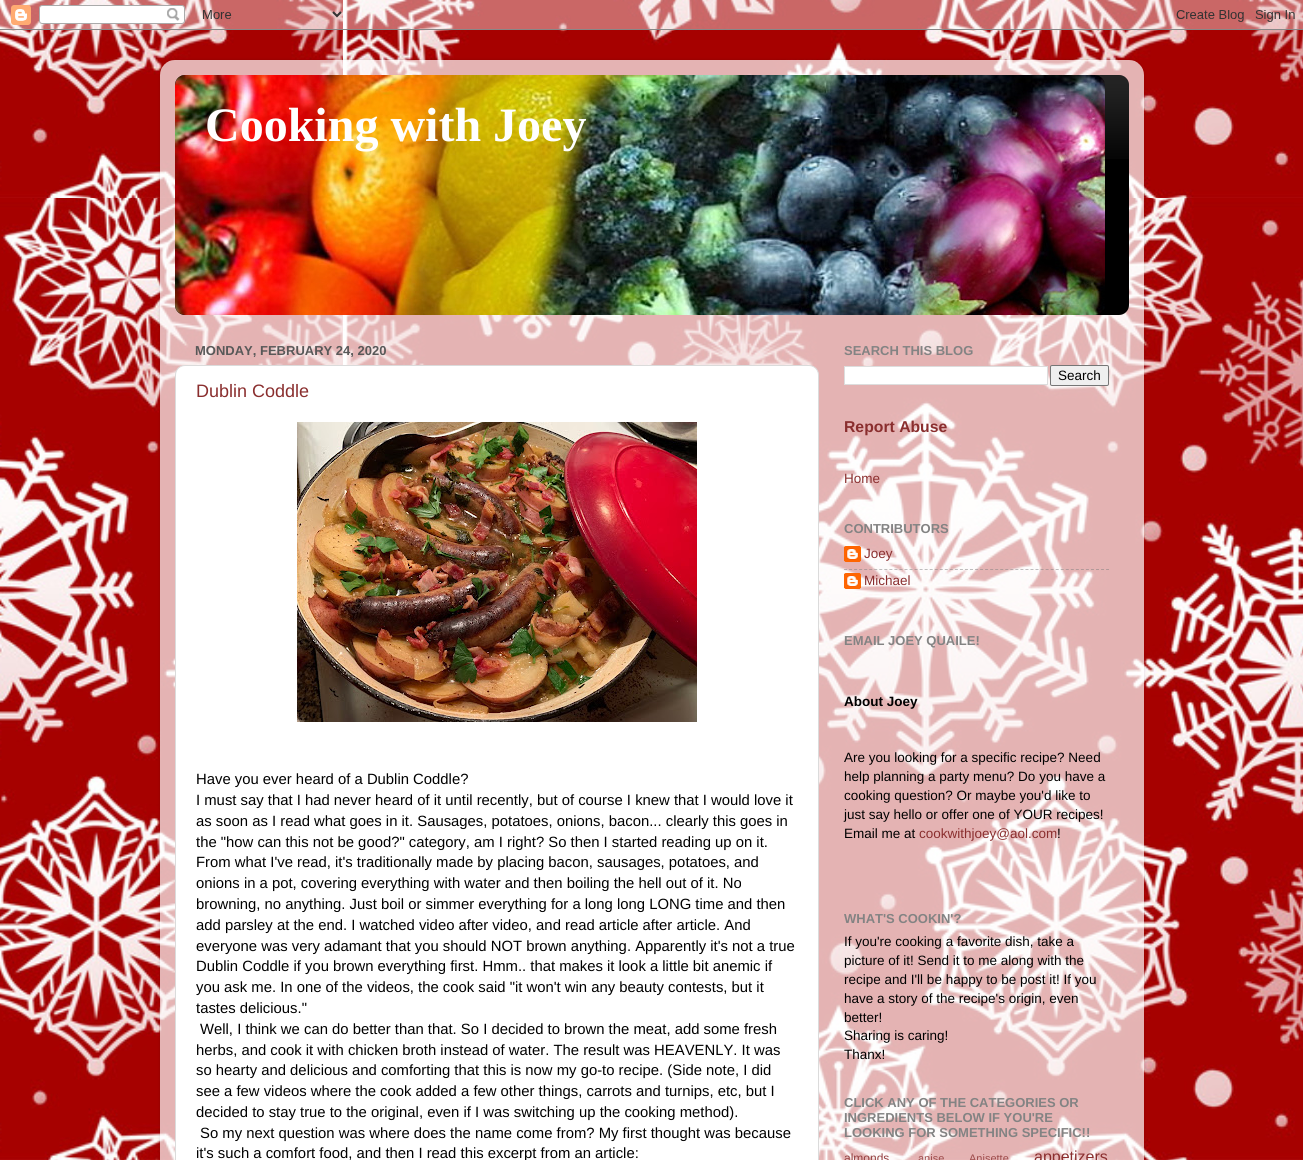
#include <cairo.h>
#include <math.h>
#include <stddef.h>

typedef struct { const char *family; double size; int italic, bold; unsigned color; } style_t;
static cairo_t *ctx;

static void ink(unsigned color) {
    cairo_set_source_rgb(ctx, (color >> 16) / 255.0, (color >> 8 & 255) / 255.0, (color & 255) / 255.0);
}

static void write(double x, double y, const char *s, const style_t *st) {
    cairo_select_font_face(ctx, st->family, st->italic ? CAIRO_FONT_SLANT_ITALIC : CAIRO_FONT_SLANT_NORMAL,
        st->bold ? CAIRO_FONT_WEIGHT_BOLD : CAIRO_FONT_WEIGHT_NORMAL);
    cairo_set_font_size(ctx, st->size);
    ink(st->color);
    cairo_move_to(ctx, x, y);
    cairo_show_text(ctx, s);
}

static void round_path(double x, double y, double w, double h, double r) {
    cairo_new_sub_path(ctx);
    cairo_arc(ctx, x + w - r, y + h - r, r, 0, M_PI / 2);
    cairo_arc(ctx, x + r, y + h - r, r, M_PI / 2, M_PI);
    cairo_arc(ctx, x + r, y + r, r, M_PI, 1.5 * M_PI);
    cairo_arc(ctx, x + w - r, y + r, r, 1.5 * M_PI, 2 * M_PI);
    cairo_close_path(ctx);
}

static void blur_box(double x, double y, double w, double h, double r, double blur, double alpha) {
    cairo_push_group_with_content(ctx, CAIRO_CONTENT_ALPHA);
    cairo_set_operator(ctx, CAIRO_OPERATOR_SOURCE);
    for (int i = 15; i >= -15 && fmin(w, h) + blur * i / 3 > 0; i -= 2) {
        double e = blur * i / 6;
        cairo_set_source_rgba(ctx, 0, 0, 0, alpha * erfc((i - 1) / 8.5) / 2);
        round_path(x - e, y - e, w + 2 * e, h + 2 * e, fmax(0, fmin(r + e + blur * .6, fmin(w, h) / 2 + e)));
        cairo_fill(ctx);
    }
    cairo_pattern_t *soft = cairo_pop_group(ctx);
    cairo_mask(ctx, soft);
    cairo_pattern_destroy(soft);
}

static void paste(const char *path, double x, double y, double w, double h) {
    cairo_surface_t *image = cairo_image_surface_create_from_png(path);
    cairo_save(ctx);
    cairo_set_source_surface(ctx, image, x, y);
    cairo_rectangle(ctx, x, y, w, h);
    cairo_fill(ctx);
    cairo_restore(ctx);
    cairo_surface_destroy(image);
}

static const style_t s1 = {"Liberation Serif", 48, 0, 1, 0xffffff};
static const style_t s2 = {"Liberation Sans", 13, 0, 1, 0x585858};
static const style_t s3 = {"Liberation Sans", 18, 0, 0, 0x8a2e2e};
static const style_t s4 = {"Liberation Sans", 14.85, 0, 0, 0x000000};
static const style_t s5 = {"Liberation Sans", 13, 0, 1, 0x838383};
static const style_t s6 = {"Liberation Sans", 13.5, 0, 0, 0x000000};
static const style_t s7 = {"Liberation Sans", 15.75, 0, 1, 0x8a2e2e};
static const style_t s8 = {"Liberation Sans", 13.5, 0, 0, 0x8a2e2e};
static const style_t s9 = {"Liberation Sans", 13.5, 0, 1, 0x000000};
static const style_t s10 = {"Liberation Sans", 12, 0, 0, 0x943f3f};
static const style_t s11 = {"Liberation Sans", 11, 0, 0, 0x9d4b4b};
static const style_t s12 = {"Liberation Sans", 16, 0, 0, 0x8a2e2e};

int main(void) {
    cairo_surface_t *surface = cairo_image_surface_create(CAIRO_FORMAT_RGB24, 1303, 1160);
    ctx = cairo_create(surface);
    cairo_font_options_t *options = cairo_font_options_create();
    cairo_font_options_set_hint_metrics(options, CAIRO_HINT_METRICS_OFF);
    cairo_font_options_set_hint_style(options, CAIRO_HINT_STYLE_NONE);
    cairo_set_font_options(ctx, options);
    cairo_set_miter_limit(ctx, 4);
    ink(0xffffff);
    cairo_paint(ctx);
    paste("pic1.png", 0, 0, 1303, 1160);
    paste("pic2.png", 0, 0, 1303, 30);
    cairo_save(ctx);
    cairo_set_fill_rule(ctx, CAIRO_FILL_RULE_EVEN_ODD);
    cairo_new_path(ctx);
    cairo_move_to(ctx, 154, 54);
    cairo_line_to(ctx, 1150, 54);
    cairo_line_to(ctx, 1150, 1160);
    cairo_line_to(ctx, 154, 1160);
    cairo_close_path(ctx);
    cairo_move_to(ctx, 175, 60);
    cairo_line_to(ctx, 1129, 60);
    cairo_curve_to(ctx, 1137.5, 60, 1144, 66.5, 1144, 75);
    cairo_line_to(ctx, 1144, 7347);
    cairo_curve_to(ctx, 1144, 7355.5, 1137.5, 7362, 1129, 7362);
    cairo_line_to(ctx, 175, 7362);
    cairo_curve_to(ctx, 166.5, 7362, 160, 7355.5, 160, 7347);
    cairo_line_to(ctx, 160, 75);
    cairo_curve_to(ctx, 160, 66.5, 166.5, 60, 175, 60);
    cairo_close_path(ctx);
    cairo_clip(ctx);
    ink(0x000000);
    blur_box(160, 60, 984, 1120, 15, 1.5, 0.15);
    cairo_restore(ctx);
    paste("pic3.png", 160, 60, 984, 1100);
    ink(0x000000);
    round_path(175, 75, 954, 240, 10);
    cairo_fill(ctx);
    paste("pic4.png", 175, 75, 954, 84);
    paste("pic5.png", 175, 75, 930, 240);
    write(205, 141, "Cooking with Joey", &s1);
    write(195, 355, "MONDAY, FEBRUARY 24, 2020", &s2);
    ink(0xffffff);
    round_path(175.5, 365.5, 643, 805, 9.5);
    cairo_fill_preserve(ctx);
    ink(0xdbdbdb);
    cairo_set_line_width(ctx, 1);
    cairo_stroke(ctx);
    write(196, 397, "Dublin Coddle", &s3);
    paste("pic6.png", 297, 422, 400, 300);
    write(196, 784, "Have you ever heard of a Dublin Coddle?", &s4);
    write(196, 805, "I must say that I had never heard of it until recently, but of course I knew that I would love it", &s4);
    write(196, 826, "as soon as I read what goes in it. Sausages, potatoes, onions, bacon... clearly this goes in", &s4);
    write(196, 847, "the \"how can this not be good?\" category, am I right? So then I started reading up on it.", &s4);
    write(196, 867, "From what I've read, it's traditionally made by placing bacon, sausages, potatoes, and", &s4);
    write(196, 888, "onions in a pot, covering everything with water and then boiling the hell out of it. No", &s4);
    write(196, 909, "browning, no anything. Just boil or simmer everything for a long long LONG time and then", &s4);
    write(196, 930, "add parsley at the end. I watched video after video, and read article after article. And", &s4);
    write(196, 951, "everyone was very adamant that you should NOT brown anything. Apparently it's not a true", &s4);
    write(196, 971, "Dublin Coddle if you brown everything first. Hmm.. that makes it look a little bit anemic if", &s4);
    write(196, 992, "you ask me. In one of the videos, the cook said \"it won't win any beauty contests, but it", &s4);
    write(196, 1013, "tastes delicious.\"", &s4);
    write(200, 1034, "Well, I think we can do better than that. So I decided to brown the meat, add some fresh", &s4);
    write(196, 1055, "herbs, and cook it with chicken broth instead of water. The result was HEAVENLY. It was", &s4);
    write(196, 1075, "so hearty and delicious and comforting that this is now my go-to recipe. (Side note, I did", &s4);
    write(196, 1096, "see a few videos where the cook added a few other things, carrots and turnips, etc, but I", &s4);
    write(196, 1117, "decided to stay true to the original, even if I was switching up the cooking method).", &s4);
    write(200, 1138, "So my next question was where does the name come from? My first thought was because", &s4);
    write(196, 1158, "it's such a comfort food, and then I read this excerpt from an article:", &s4);
    write(844, 355, "SEARCH THIS BLOG", &s5);
    ink(0xffffff);
    cairo_rectangle(ctx, 844.5, 366.5, 203, 18);
    cairo_fill_preserve(ctx);
    ink(0xdddddd);
    cairo_stroke(ctx);
    ink(0xefefef);
    round_path(1050.5, 365.5, 58, 20, 1.5);
    cairo_fill_preserve(ctx);
    ink(0x767676);
    cairo_stroke(ctx);
    write(1058, 380, "Search", &s6);
    write(844, 432, "Report Abuse", &s7);
    write(844, 483, "Home", &s8);
    write(844, 533, "CONTRIBUTORS", &s5);
    paste("pic7.png", 844, 546, 17, 16);
    write(864, 558, "Joey", &s8);
    cairo_new_path(ctx);
    cairo_move_to(ctx, 844, 569.5);
    cairo_line_to(ctx, 1109, 569.5);
    cairo_set_source_rgba(ctx, 0.502, 0.502, 0.502, 0.5);
    cairo_set_dash(ctx, (double[]){3, 2.04}, 2, 0);
    cairo_stroke(ctx);
    paste("pic8.png", 844, 573, 17, 16);
    write(864, 585, "Michael", &s8);
    write(844, 645, "EMAIL JOEY QUAILE!", &s5);
    write(844, 706, "About Joey", &s9);
    write(844, 762, "Are you looking for a specific recipe? Need", &s6);
    write(844, 781, "help planning a party menu? Do you have a", &s6);
    write(844, 800, "cooking question? Or maybe you'd like to", &s6);
    write(844, 819, "just say hello or offer one of YOUR recipes!", &s6);
    write(844, 838, "Email me at", &s6);
    write(919, 838, "cookwithjoey@aol.com", &s8);
    write(1057, 838, "!", &s6);
    write(844, 923, "WHAT'S COOKIN'?", &s5);
    write(844, 946, "If you're cooking a favorite dish, take a", &s6);
    write(844, 965, "picture of it! Send it to me along with the", &s6);
    write(844, 984, "recipe and I'll be happy to be post it! If you", &s6);
    write(844, 1003, "have a story of the recipe's origin, even", &s6);
    write(844, 1022, "better!", &s6);
    write(844, 1040, "Sharing is caring!", &s6);
    write(844, 1059, "Thanx!", &s6);
    write(844, 1107, "CLICK ANY OF THE CATEGORIES OR", &s5);
    write(844, 1122, "INGREDIENTS BELOW IF YOU'RE", &s5);
    write(844, 1137, "LOOKING FOR SOMETHING SPECIFIC!!", &s5);
    write(844, 1162, "almonds", &s10);
    write(918, 1162, "anise", &s11);
    write(969, 1162, "Anisette", &s11);
    write(1034, 1162, "appetizers", &s12);
    cairo_surface_write_to_png(surface, "screenshot.png");
    cairo_font_options_destroy(options);
    cairo_destroy(ctx);
    cairo_surface_destroy(surface);
    return 0;
}
